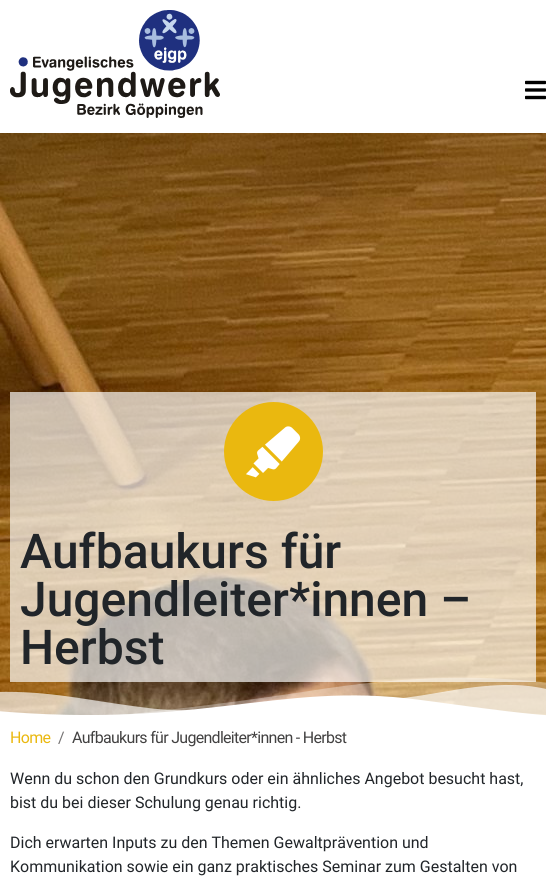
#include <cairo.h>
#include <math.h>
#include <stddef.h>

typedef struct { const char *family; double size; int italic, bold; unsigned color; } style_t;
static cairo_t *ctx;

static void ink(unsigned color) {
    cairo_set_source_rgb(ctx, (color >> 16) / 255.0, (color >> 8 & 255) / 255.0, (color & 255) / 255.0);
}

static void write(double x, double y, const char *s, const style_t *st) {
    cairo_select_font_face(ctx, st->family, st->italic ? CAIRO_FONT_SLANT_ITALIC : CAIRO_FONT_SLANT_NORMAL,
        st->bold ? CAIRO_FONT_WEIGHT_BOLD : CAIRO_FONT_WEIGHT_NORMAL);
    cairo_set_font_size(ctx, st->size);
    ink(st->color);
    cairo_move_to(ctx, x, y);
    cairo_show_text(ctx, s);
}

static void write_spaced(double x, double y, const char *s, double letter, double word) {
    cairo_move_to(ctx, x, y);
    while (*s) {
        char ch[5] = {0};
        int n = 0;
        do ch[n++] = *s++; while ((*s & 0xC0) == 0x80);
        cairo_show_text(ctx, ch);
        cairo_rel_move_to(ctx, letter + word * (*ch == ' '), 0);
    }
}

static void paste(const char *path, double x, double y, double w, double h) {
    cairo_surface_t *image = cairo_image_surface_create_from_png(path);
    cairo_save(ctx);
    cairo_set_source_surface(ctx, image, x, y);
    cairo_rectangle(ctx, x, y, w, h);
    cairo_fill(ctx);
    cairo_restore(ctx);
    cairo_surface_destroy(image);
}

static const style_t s1 = {"Roboto Medium", 48, 0, 0, 0x212529};
static const style_t s2 = {"Roboto", 16, 0, 0, 0x212529};

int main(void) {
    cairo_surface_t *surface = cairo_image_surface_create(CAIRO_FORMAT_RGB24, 546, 891);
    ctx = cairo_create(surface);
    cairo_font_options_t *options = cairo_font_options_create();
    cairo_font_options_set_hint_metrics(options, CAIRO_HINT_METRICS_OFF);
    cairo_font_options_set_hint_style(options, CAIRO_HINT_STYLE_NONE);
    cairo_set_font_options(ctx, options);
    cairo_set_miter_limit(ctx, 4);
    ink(0xffffff);
    cairo_paint(ctx);
    paste("pic1.png", 10, 10, 210, 108);
    paste("pic2.png", 525, 80, 21, 20);
    paste("pic3.png", 0, 133, 546, 583);
    cairo_set_source_rgba(ctx, 1, 1, 1, 0.67);
    cairo_rectangle(ctx, 10, 392, 526, 126);
    cairo_fill(ctx);
    ink(0xeab80f);
    cairo_arc(ctx, 273.5, 451.5, 49.5, 0, 2 * M_PI);
    cairo_fill(ctx);
    paste("pic4.png", 246, 426, 55, 52);
    paste("pic5.png", 0, 677, 546, 42);
    cairo_set_source_rgba(ctx, 1, 1, 1, 0.67);
    cairo_rectangle(ctx, 10, 518, 526, 164);
    cairo_fill(ctx);
    write(20, 568, "Aufbaukurs für", &s1);
    write(20, 616, "Jugendleiter*innen –", &s1);
    write(20, 664, "Herbst", &s1);
    cairo_select_font_face(ctx, "Roboto", CAIRO_FONT_SLANT_NORMAL, CAIRO_FONT_WEIGHT_NORMAL);
    cairo_set_font_size(ctx, 16);
    ink(0xeab80f);
    write_spaced(10, 743, "Home", -0.7, 0);
    ink(0x757373);
    write_spaced(58, 743, "/", -0.7, 0);
    ink(0x424141);
    write_spaced(72, 743, "Aufbaukurs für Jugendleiter*innen - Herbst", -0.7, 0);
    write(10, 784, "Wenn du schon den Grundkurs oder ein ähnliches Angebot besucht hast,", &s2);
    write(10, 808, "bist du bei dieser Schulung genau richtig.", &s2);
    write(10, 848, "Dich erwarten Inputs zu den Themen Gewaltprävention und", &s2);
    write(10, 872, "Kommunikation sowie ein ganz praktisches Seminar zum Gestalten von", &s2);
    cairo_surface_write_to_png(surface, "screenshot.png");
    cairo_font_options_destroy(options);
    cairo_destroy(ctx);
    cairo_surface_destroy(surface);
    return 0;
}
